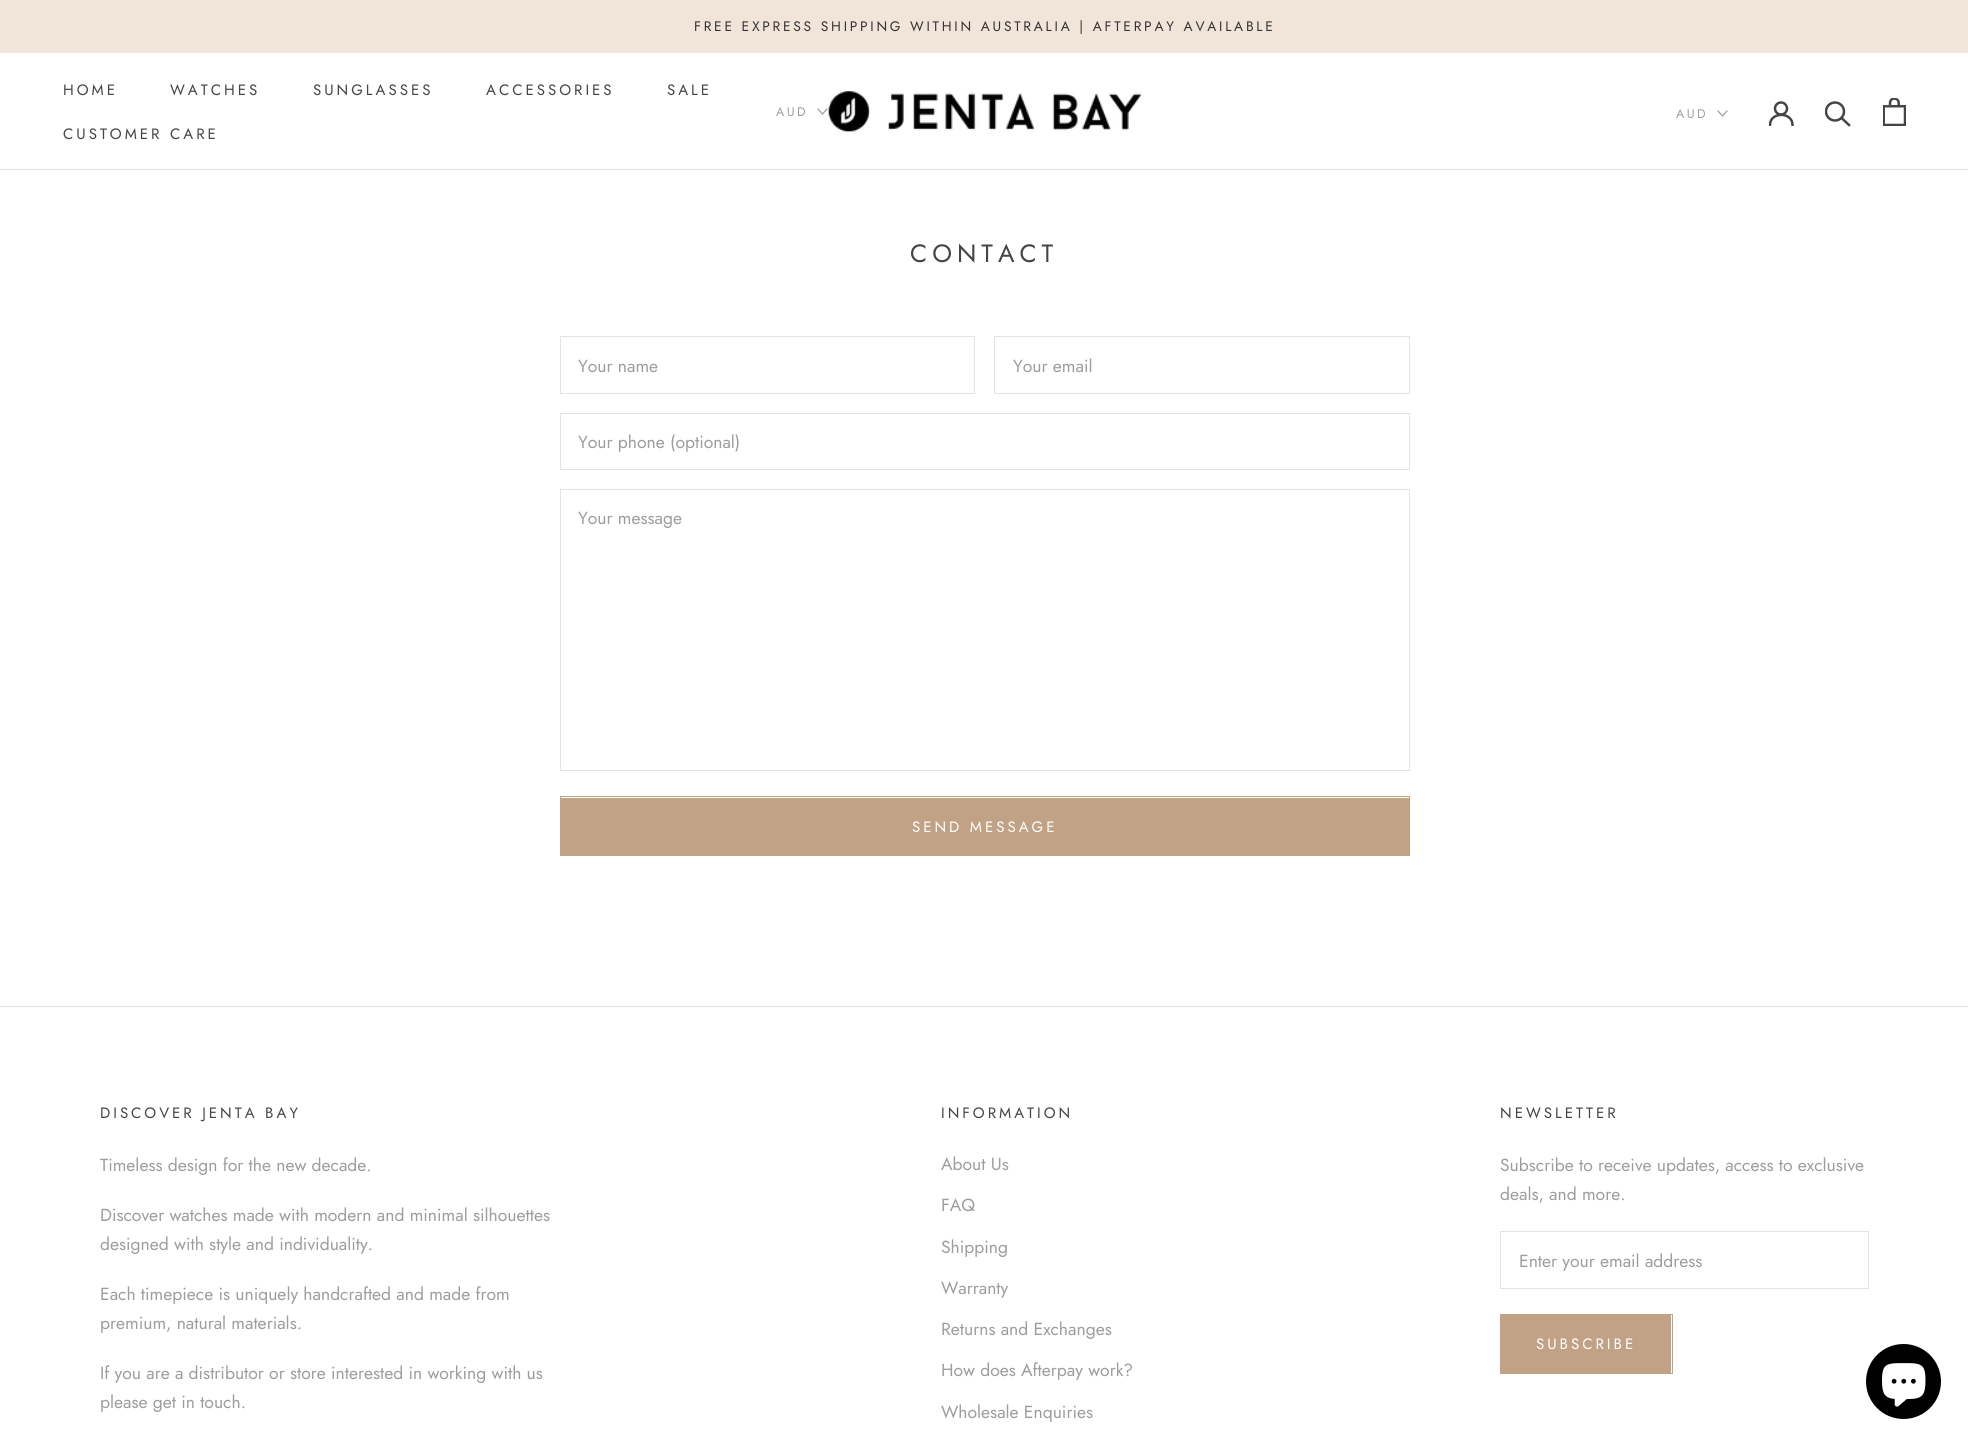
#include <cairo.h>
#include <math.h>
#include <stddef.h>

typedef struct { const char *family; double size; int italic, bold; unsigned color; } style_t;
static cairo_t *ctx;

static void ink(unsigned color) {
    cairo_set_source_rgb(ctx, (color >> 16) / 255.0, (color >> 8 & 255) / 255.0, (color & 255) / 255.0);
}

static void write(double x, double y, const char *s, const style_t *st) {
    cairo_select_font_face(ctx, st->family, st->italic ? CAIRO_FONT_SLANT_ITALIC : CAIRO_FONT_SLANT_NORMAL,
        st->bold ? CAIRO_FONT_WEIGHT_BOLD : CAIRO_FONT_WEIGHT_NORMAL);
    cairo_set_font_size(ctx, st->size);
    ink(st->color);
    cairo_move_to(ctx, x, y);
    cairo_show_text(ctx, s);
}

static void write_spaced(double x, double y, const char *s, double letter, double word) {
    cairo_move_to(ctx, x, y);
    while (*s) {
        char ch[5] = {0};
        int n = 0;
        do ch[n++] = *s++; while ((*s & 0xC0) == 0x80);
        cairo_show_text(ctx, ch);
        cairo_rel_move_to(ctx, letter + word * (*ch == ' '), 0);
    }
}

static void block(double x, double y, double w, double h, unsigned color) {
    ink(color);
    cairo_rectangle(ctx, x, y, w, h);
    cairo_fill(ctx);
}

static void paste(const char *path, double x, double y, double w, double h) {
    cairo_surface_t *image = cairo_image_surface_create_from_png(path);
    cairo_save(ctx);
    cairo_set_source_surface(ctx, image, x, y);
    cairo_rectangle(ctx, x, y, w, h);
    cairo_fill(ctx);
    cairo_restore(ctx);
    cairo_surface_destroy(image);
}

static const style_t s1 = {"Jost", 17.5, 0, 0, 0x9d9d9d};

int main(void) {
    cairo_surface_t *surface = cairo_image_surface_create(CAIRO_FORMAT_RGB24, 1968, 1444);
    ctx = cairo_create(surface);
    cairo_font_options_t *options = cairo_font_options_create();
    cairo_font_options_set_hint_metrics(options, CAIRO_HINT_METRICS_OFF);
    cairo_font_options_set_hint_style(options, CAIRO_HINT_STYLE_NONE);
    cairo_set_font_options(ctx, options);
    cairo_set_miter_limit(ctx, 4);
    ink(0xffffff);
    cairo_paint(ctx);
    block(0, 0, 1968, 53, 0xf1e4d8);
    cairo_select_font_face(ctx, "Jost", CAIRO_FONT_SLANT_NORMAL, CAIRO_FONT_WEIGHT_NORMAL);
    cairo_set_font_size(ctx, 13.75);
    ink(0x343434);
    write_spaced(694, 31, "FREE EXPRESS SHIPPING WITHIN AUSTRALIA | AFTERPAY AVAILABLE", 2.75, 0);
    block(0, 169, 1968, 1, 0xe3e3e3);
    cairo_set_font_size(ctx, 15);
    ink(0x454545);
    write_spaced(63, 95, "HOME", 3, 0);
    write_spaced(170, 95, "WATCHES", 3, 0);
    write_spaced(313, 95, "SUNGLASSES", 3, 0);
    write_spaced(486, 95, "ACCESSORIES", 3, 0);
    write_spaced(667, 95, "SALE", 3, 0);
    write_spaced(63, 139, "CUSTOMER CARE", 3, 0);
    cairo_set_font_size(ctx, 12.5);
    ink(0x9d9d9d);
    write_spaced(776, 116, "AUD", 2.5, 0);
    cairo_new_path(ctx);
    cairo_move_to(ctx, 827, 109);
    cairo_line_to(ctx, 822.5, 114);
    cairo_line_to(ctx, 818, 109);
    cairo_set_line_width(ctx, 1.2);
    cairo_set_line_cap(ctx, CAIRO_LINE_CAP_SQUARE);
    cairo_stroke(ctx);
    paste("pic1.png", 828, 91, 314, 41);
    write_spaced(1676, 118, "AUD", 2.5, 0);
    cairo_new_path(ctx);
    cairo_move_to(ctx, 1727, 111);
    cairo_line_to(ctx, 1722.5, 116);
    cairo_line_to(ctx, 1718, 111);
    cairo_stroke(ctx);
    cairo_save(ctx);
    cairo_rectangle(ctx, 1769, 101, 25, 25);
    cairo_clip(ctx);
    cairo_new_path(ctx);
    cairo_move_to(ctx, 1770, 125);
    cairo_curve_to(ctx, 1770, 111.5, 1792.5, 111.5, 1792.5, 125);
    ink(0x454545);
    cairo_set_line_width(ctx, 2.5);
    cairo_stroke(ctx);
    cairo_restore(ctx);
    cairo_arc(ctx, 1781, 108.5, 6, 0, 2 * M_PI);
    ink(0x454545);
    cairo_set_line_width(ctx, 2.5);
    cairo_set_line_cap(ctx, CAIRO_LINE_CAP_BUTT);
    cairo_stroke(ctx);
    cairo_new_path(ctx);
    cairo_move_to(ctx, 1849, 125);
    cairo_line_to(ctx, 1841.5, 118);
    cairo_set_line_cap(ctx, CAIRO_LINE_CAP_SQUARE);
    cairo_stroke(ctx);
    cairo_save(ctx);
    cairo_rectangle(ctx, 1825, 101, 26, 27);
    cairo_clip(ctx);
    cairo_arc(ctx, 1835, 111.5, 9, 0, 2 * M_PI);
    cairo_set_line_cap(ctx, CAIRO_LINE_CAP_BUTT);
    cairo_stroke(ctx);
    cairo_restore(ctx);
    paste("pic2.png", 1883, 98, 23, 28);
    cairo_set_font_size(ctx, 25);
    write_spaced(910, 262, "CONTACT", 5, 0);
    cairo_rectangle(ctx, 560.5, 336.5, 414, 57);
    ink(0xe3e3e3);
    cairo_set_line_width(ctx, 1);
    cairo_set_line_cap(ctx, CAIRO_LINE_CAP_BUTT);
    cairo_stroke(ctx);
    write(578, 372, "Your name", &s1);
    cairo_rectangle(ctx, 994.5, 336.5, 415, 57);
    ink(0xe3e3e3);
    cairo_stroke(ctx);
    write(1013, 372, "Your email", &s1);
    cairo_rectangle(ctx, 560.5, 413.5, 849, 56);
    ink(0xe3e3e3);
    cairo_stroke(ctx);
    write(578, 448, "Your phone (optional)", &s1);
    cairo_rectangle(ctx, 560.5, 489.5, 849, 281);
    ink(0xe3e3e3);
    cairo_stroke(ctx);
    write(578, 524, "Your message", &s1);
    cairo_rectangle(ctx, 560.5, 796.5, 849, 59);
    ink(0xc2a284);
    cairo_stroke(ctx);
    block(561, 798, 848, 57, 0xc2a284);
    cairo_set_font_size(ctx, 15);
    ink(0xffffff);
    write_spaced(912, 832, "SEND MESSAGE", 3, 0);
    block(0, 1006, 1968, 1, 0xe3e3e3);
    ink(0x454545);
    write_spaced(100, 1118, "DISCOVER JENTA BAY", 3, 0);
    write(100, 1171, "Timeless design for the new decade.", &s1);
    write(100, 1221, "Discover watches made with modern and minimal silhouettes", &s1);
    write(100, 1250, "designed with style and individuality.", &s1);
    write(100, 1300, "Each timepiece is uniquely handcrafted and made from", &s1);
    write(100, 1329, "premium, natural materials.", &s1);
    write(100, 1379, "If you are a distributor or store interested in working with us", &s1);
    write(100, 1408, "please get in touch.", &s1);
    cairo_set_font_size(ctx, 15);
    ink(0x454545);
    write_spaced(941, 1118, "INFORMATION", 3, 0);
    write(941, 1170, "About Us", &s1);
    write(941, 1211, "FAQ", &s1);
    write(941, 1253, "Shipping", &s1);
    write(941, 1294, "Warranty", &s1);
    write(941, 1335, "Returns and Exchanges", &s1);
    write(941, 1376, "How does Afterpay work?", &s1);
    write(941, 1418, "Wholesale Enquiries", &s1);
    cairo_set_font_size(ctx, 15);
    ink(0x454545);
    write_spaced(1500, 1118, "NEWSLETTER", 3, 0);
    write(1500, 1171, "Subscribe to receive updates, access to exclusive", &s1);
    write(1500, 1200, "deals, and more.", &s1);
    cairo_rectangle(ctx, 1500.5, 1231.5, 368, 57);
    ink(0xe3e3e3);
    cairo_stroke(ctx);
    write(1519, 1267, "Enter your email address", &s1);
    cairo_rectangle(ctx, 1500.5, 1314.5, 172, 59);
    ink(0xc2a284);
    cairo_stroke(ctx);
    block(1501, 1315, 170, 58, 0xc2a284);
    cairo_set_font_size(ctx, 15);
    ink(0xffffff);
    write_spaced(1536, 1349, "SUBSCRIBE", 3, 0);
    ink(0x000000);
    cairo_new_path(ctx);
    cairo_arc(ctx, 1903.5, 1381.5, 37.5, 0, 2 * M_PI);
    cairo_fill(ctx);
    paste("pic3.png", 1882, 1363, 44, 44);
    cairo_surface_write_to_png(surface, "screenshot.png");
    cairo_font_options_destroy(options);
    cairo_destroy(ctx);
    cairo_surface_destroy(surface);
    return 0;
}
